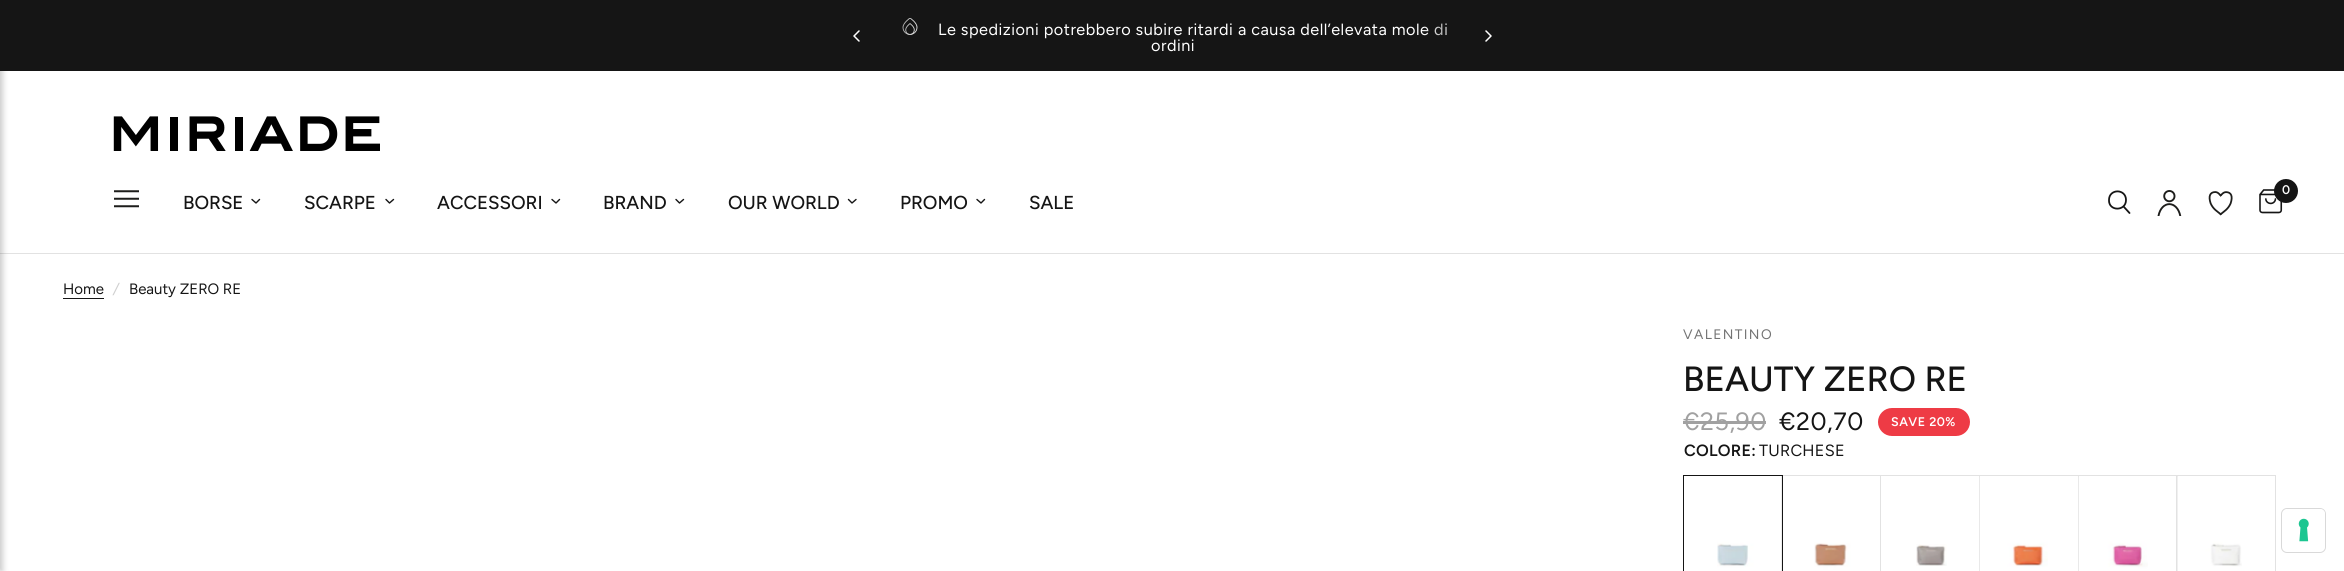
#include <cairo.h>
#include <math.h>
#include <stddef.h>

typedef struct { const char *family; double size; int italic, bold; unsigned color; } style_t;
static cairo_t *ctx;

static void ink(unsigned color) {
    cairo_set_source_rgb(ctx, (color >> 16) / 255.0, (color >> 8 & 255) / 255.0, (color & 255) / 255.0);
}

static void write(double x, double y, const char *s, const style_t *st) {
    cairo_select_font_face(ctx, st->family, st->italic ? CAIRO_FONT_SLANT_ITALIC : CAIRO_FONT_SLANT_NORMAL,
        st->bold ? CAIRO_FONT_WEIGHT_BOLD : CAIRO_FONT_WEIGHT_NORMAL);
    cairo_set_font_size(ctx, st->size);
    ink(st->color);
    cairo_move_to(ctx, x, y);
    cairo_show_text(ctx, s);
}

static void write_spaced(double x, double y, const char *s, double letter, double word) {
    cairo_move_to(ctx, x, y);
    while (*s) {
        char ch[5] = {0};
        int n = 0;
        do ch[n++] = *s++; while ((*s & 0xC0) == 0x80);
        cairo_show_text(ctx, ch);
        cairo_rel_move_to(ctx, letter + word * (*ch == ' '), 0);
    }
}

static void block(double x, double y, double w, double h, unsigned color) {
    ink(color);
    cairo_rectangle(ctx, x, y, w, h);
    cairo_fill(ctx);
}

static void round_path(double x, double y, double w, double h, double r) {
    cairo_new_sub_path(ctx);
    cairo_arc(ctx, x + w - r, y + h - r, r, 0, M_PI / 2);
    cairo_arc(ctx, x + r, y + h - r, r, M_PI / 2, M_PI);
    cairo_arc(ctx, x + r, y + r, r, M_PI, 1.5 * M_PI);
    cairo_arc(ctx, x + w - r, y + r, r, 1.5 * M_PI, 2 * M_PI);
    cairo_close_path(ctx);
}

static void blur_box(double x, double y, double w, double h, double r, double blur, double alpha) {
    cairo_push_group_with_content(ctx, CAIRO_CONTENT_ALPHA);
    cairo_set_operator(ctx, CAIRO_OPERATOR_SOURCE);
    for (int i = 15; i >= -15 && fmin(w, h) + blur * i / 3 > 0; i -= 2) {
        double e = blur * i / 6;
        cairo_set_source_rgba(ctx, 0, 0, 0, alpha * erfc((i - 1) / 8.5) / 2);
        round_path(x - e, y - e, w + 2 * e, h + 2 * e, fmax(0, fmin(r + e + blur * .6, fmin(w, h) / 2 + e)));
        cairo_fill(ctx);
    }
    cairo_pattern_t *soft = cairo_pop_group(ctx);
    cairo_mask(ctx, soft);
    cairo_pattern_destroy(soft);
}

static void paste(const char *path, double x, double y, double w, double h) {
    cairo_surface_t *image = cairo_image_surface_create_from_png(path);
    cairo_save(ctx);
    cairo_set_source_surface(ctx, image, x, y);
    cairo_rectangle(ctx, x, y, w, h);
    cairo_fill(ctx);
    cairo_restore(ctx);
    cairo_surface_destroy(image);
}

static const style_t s1 = {"Figtree SemiBold", 12.5, 0, 0, 0xffffff};
static const style_t s2 = {"Figtree Medium", 18.75, 0, 0, 0x151515};
static const style_t s3 = {"Figtree", 15, 0, 0, 0x151515};
static const style_t s4 = {"Figtree", 15, 1, 0, 0xd0d0d0};
static const style_t s5 = {"Figtree Medium", 35, 0, 0, 0x151515};

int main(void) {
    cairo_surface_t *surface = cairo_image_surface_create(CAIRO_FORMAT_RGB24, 2344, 571);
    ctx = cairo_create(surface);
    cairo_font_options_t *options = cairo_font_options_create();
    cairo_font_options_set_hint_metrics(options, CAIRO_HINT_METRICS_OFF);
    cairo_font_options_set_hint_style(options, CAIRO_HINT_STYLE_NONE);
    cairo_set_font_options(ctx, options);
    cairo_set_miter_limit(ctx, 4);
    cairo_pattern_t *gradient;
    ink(0xffffff);
    cairo_paint(ctx);
    block(0, 253, 2344, 1, 0xe2e2e2);
    ink(0x000000);
    blur_box(-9, 0, 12, 571, 0, 3, 0.2);
    block(0, 0, 2344, 71, 0x151515);
    cairo_new_path(ctx);
    cairo_move_to(ctx, 859, 31);
    cairo_line_to(ctx, 854, 36);
    cairo_line_to(ctx, 859, 41);
    ink(0xffffff);
    cairo_set_line_width(ctx, 1.5);
    cairo_set_line_cap(ctx, CAIRO_LINE_CAP_ROUND);
    cairo_set_line_join(ctx, CAIRO_LINE_JOIN_ROUND);
    cairo_stroke(ctx);
    paste("pic1.png", 902, 18, 16, 17);
    gradient = cairo_pattern_create_linear(923, 36, 860, 36);
    cairo_pattern_add_color_stop_rgba(gradient, 0, 0.082, 0.082, 0.082, 0);
    cairo_pattern_add_color_stop_rgba(gradient, 1, 0.082, 0.082, 0.082, 1);
    cairo_set_source(ctx, gradient);
    cairo_pattern_destroy(gradient);
    cairo_rectangle(ctx, 902, 18, 16, 17);
    cairo_fill(ctx);
    cairo_select_font_face(ctx, "Figtree", CAIRO_FONT_SLANT_NORMAL, CAIRO_FONT_WEIGHT_NORMAL);
    cairo_set_font_size(ctx, 16.25);
    ink(0xffffff);
    write_spaced(938, 35, "Le spedizioni potrebbero subire ritardi a causa dell’elevata mole di", 0.5, 0);
    write_spaced(1151, 51, "ordini", 0.5, 0);
    gradient = cairo_pattern_create_linear(1423, 36, 1485, 36);
    cairo_pattern_add_color_stop_rgba(gradient, 0, 0.082, 0.082, 0.082, 0);
    cairo_pattern_add_color_stop_rgba(gradient, 1, 0.082, 0.082, 0.082, 1);
    cairo_set_source(ctx, gradient);
    cairo_pattern_destroy(gradient);
    cairo_rectangle(ctx, 1424, 23, 22, 13);
    cairo_fill(ctx);
    cairo_new_path(ctx);
    cairo_move_to(ctx, 1486, 31);
    cairo_line_to(ctx, 1491, 36);
    cairo_line_to(ctx, 1486, 41);
    ink(0xffffff);
    cairo_stroke(ctx);
    paste("pic2.png", 113, 116, 267, 35);
    cairo_new_path(ctx);
    cairo_move_to(ctx, 2124, 207);
    cairo_line_to(ctx, 2129.5, 213);
    cairo_move_to(ctx, 2126, 200);
    cairo_curve_to(ctx, 2126, 211.5, 2108.5, 211.5, 2109, 200);
    cairo_curve_to(ctx, 2109, 188.5, 2126, 188.5, 2126, 200);
    cairo_close_path(ctx);
    ink(0x151515);
    cairo_set_line_width(ctx, 1.8);
    cairo_stroke(ctx);
    paste("pic3.png", 2157, 190, 25, 26);
    paste("pic4.png", 2208, 191, 25, 25);
    paste("pic5.png", 2259, 189, 24, 25);
    cairo_arc(ctx, 2286, 191, 12, 0, 2 * M_PI);
    cairo_fill(ctx);
    write(2282, 194, "0", &s1);
    paste("pic6.png", 114, 190, 25, 18);
    write(183, 209, "BORSE", &s2);
    cairo_new_path(ctx);
    cairo_move_to(ctx, 259.5, 199.5);
    cairo_line_to(ctx, 256, 203);
    cairo_line_to(ctx, 252, 199.5);
    cairo_set_line_width(ctx, 1.4);
    cairo_stroke(ctx);
    write(304, 209, "SCARPE", &s2);
    cairo_new_path(ctx);
    cairo_move_to(ctx, 393.5, 199.5);
    cairo_line_to(ctx, 389.5, 203);
    cairo_line_to(ctx, 386, 199.5);
    cairo_stroke(ctx);
    write(437, 209, "ACCESSORI", &s2);
    cairo_new_path(ctx);
    cairo_move_to(ctx, 559.5, 199.5);
    cairo_line_to(ctx, 556, 203);
    cairo_line_to(ctx, 552, 199.5);
    cairo_stroke(ctx);
    write(603, 209, "BRAND", &s2);
    cairo_new_path(ctx);
    cairo_move_to(ctx, 683.5, 199.5);
    cairo_line_to(ctx, 679.5, 203);
    cairo_line_to(ctx, 676, 199.5);
    cairo_stroke(ctx);
    write(728, 209, "OUR WORLD", &s2);
    cairo_new_path(ctx);
    cairo_move_to(ctx, 856, 199.5);
    cairo_line_to(ctx, 852, 203);
    cairo_line_to(ctx, 848.5, 199.5);
    cairo_stroke(ctx);
    write(900, 209, "PROMO", &s2);
    cairo_new_path(ctx);
    cairo_move_to(ctx, 984.5, 199.5);
    cairo_line_to(ctx, 981, 203);
    cairo_line_to(ctx, 977, 199.5);
    cairo_stroke(ctx);
    write(1029, 209, "SALE", &s2);
    write(63, 294, "Home", &s3);
    block(63, 298, 41, 1, 0x151515);
    write(113, 294, "/", &s4);
    write(129, 294, "Beauty ZERO RE", &s3);
    cairo_set_font_size(ctx, 13.75);
    ink(0x737373);
    write_spaced(1683, 339, "VALENTINO", 1.4, 0);
    write(1683, 391, "BEAUTY ZERO RE", &s5);
    cairo_select_font_face(ctx, "Figtree", CAIRO_FONT_SLANT_NORMAL, CAIRO_FONT_WEIGHT_NORMAL);
    cairo_set_font_size(ctx, 25);
    ink(0xa1a1a1);
    write_spaced(1683, 430, "€25,90", 0.5, 0);
    block(1683, 421, 83, 3, 0xa1a1a1);
    ink(0x151515);
    write_spaced(1779, 430, "€20,70", 0.5, 0);
    ink(0xee3b45);
    round_path(1878, 408, 92, 28, 14);
    cairo_fill(ctx);
    cairo_select_font_face(ctx, "Figtree SemiBold", CAIRO_FONT_SLANT_NORMAL, CAIRO_FONT_WEIGHT_NORMAL);
    cairo_set_font_size(ctx, 12.5);
    ink(0xffffff);
    write_spaced(1891, 426, "SAVE 20%", 0.5, 0);
    cairo_set_font_size(ctx, 16.25);
    ink(0x151515);
    write_spaced(1684, 456, "COLORE:", 0.25, 0);
    cairo_select_font_face(ctx, "Figtree", CAIRO_FONT_SLANT_NORMAL, CAIRO_FONT_WEIGHT_NORMAL);
    write_spaced(1759, 456, "TURCHESE", 0.25, 0);
    cairo_rectangle(ctx, 1781.5, 475.5, 99, 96);
    ink(0xe2e2e2);
    cairo_set_line_width(ctx, 1);
    cairo_set_line_cap(ctx, CAIRO_LINE_CAP_BUTT);
    cairo_set_line_join(ctx, CAIRO_LINE_JOIN_MITER);
    cairo_stroke(ctx);
    cairo_rectangle(ctx, 1683.5, 475.5, 99, 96);
    ink(0x151515);
    cairo_stroke(ctx);
    paste("pic7.png", 1717, 476, 65, 95);
    paste("pic8.png", 1814, 476, 66, 95);
    cairo_rectangle(ctx, 1880.5, 475.5, 99, 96);
    ink(0xe2e2e2);
    cairo_stroke(ctx);
    paste("pic9.png", 1916, 544, 31, 22);
    cairo_rectangle(ctx, 1979.5, 475.5, 99, 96);
    cairo_stroke(ctx);
    paste("pic10.png", 1979, 476, 69, 95);
    cairo_rectangle(ctx, 2078.5, 475.5, 99, 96);
    cairo_stroke(ctx);
    paste("pic11.png", 2078, 476, 70, 95);
    cairo_rectangle(ctx, 2176.5, 475.5, 99, 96);
    cairo_stroke(ctx);
    paste("pic12.png", 2177, 476, 65, 95);
    round_path(2281.5, 508.5, 44, 44, 5.5);
    ink(0xd9d9d9);
    cairo_stroke(ctx);
    ink(0xffffff);
    round_path(2283, 509, 42, 42, 5);
    cairo_fill(ctx);
    paste("pic13.png", 2298, 518, 11, 24);
    cairo_surface_write_to_png(surface, "screenshot.png");
    cairo_font_options_destroy(options);
    cairo_destroy(ctx);
    cairo_surface_destroy(surface);
    return 0;
}
